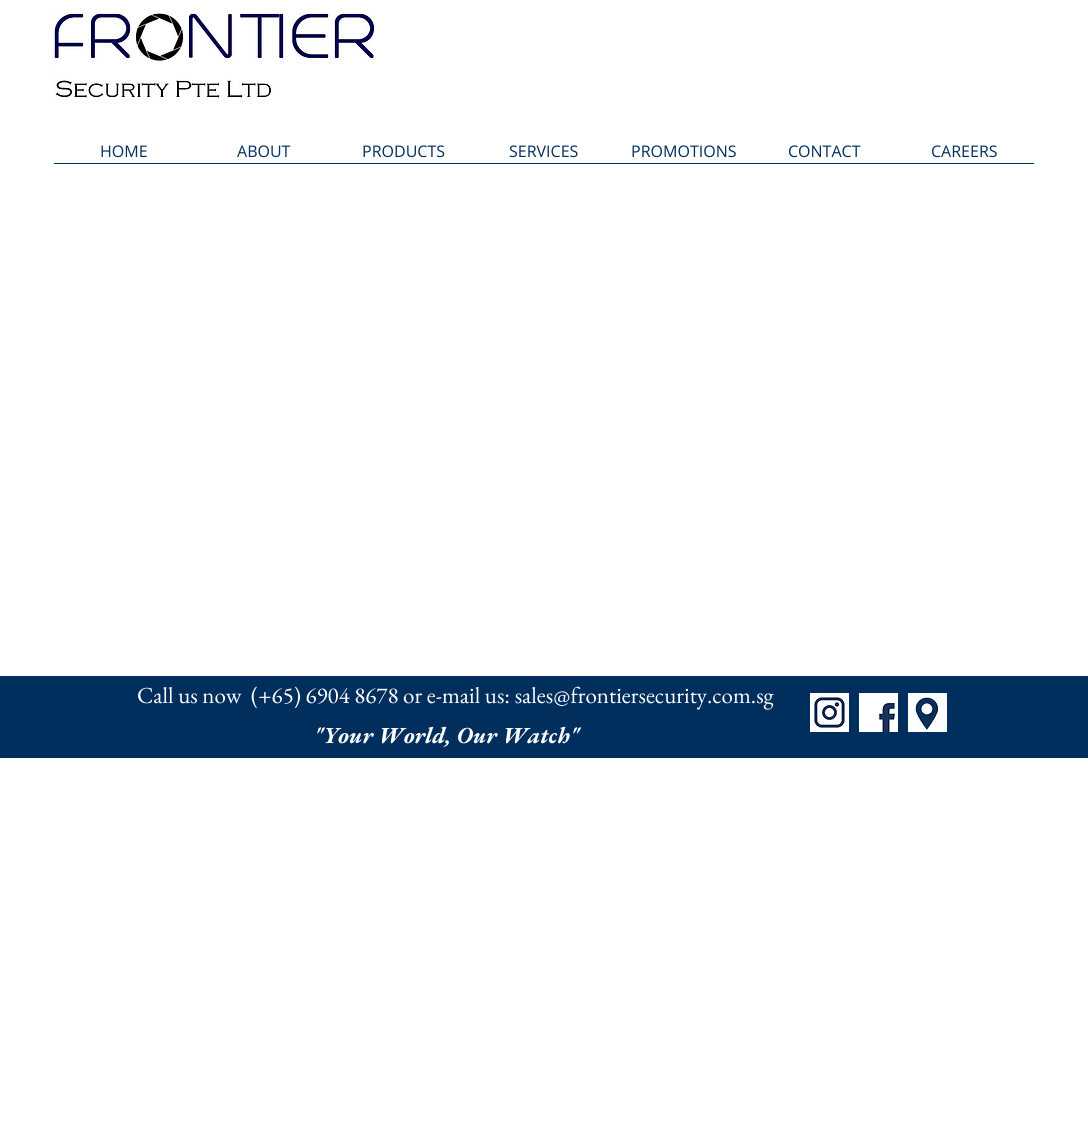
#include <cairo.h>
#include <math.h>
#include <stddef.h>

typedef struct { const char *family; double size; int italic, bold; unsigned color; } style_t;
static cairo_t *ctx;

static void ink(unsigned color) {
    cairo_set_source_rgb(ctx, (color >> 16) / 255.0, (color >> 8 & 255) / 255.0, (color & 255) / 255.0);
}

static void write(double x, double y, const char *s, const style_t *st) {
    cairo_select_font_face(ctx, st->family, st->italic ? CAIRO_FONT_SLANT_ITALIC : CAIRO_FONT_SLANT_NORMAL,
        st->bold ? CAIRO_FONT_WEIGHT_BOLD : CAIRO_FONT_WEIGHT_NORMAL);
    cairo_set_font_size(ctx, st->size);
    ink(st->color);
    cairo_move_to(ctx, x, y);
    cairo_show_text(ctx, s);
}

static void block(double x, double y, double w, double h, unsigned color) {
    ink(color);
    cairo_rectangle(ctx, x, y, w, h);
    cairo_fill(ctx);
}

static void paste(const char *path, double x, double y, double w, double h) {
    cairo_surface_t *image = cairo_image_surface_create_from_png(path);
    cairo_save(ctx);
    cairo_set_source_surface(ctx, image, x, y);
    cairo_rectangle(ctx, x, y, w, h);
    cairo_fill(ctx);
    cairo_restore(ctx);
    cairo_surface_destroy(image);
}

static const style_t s1 = {"Open Sans", 16, 0, 0, 0x002e5d};
static const style_t s2 = {"EB Garamond", 23, 0, 0, 0xffffff};
static const style_t s3 = {"EB Garamond", 23, 1, 1, 0xffffff};

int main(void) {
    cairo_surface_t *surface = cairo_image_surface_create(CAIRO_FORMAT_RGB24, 1088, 1124);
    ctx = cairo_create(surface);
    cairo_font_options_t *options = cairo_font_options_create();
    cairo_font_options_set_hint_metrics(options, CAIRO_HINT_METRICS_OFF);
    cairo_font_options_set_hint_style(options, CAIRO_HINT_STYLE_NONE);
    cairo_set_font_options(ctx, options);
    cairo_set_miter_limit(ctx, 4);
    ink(0xffffff);
    cairo_paint(ctx);
    paste("pic1.png", 54, 12, 320, 88);
    write(100, 157, "HOME", &s1);
    write(237, 157, "ABOUT", &s1);
    write(362, 157, "PRODUCTS", &s1);
    write(509, 157, "SERVICES", &s1);
    write(631, 157, "PROMOTIONS", &s1);
    write(788, 157, "CONTACT", &s1);
    write(931, 157, "CAREERS", &s1);
    block(54, 163, 980, 1, 0x002e5d);
    block(0, 676, 1088, 82, 0x002e5d);
    write(137, 703, "Call us now  (+65) 6904 8678 or e-mail us: sales@frontiersecurity.com.sg", &s2);
    paste("pic2.png", 810, 693, 39, 39);
    paste("pic3.png", 859, 693, 39, 39);
    paste("pic4.png", 908, 693, 39, 39);
    write(314, 743, "\"Your World, Our Watch\"", &s3);
    cairo_surface_write_to_png(surface, "screenshot.png");
    cairo_font_options_destroy(options);
    cairo_destroy(ctx);
    cairo_surface_destroy(surface);
    return 0;
}
